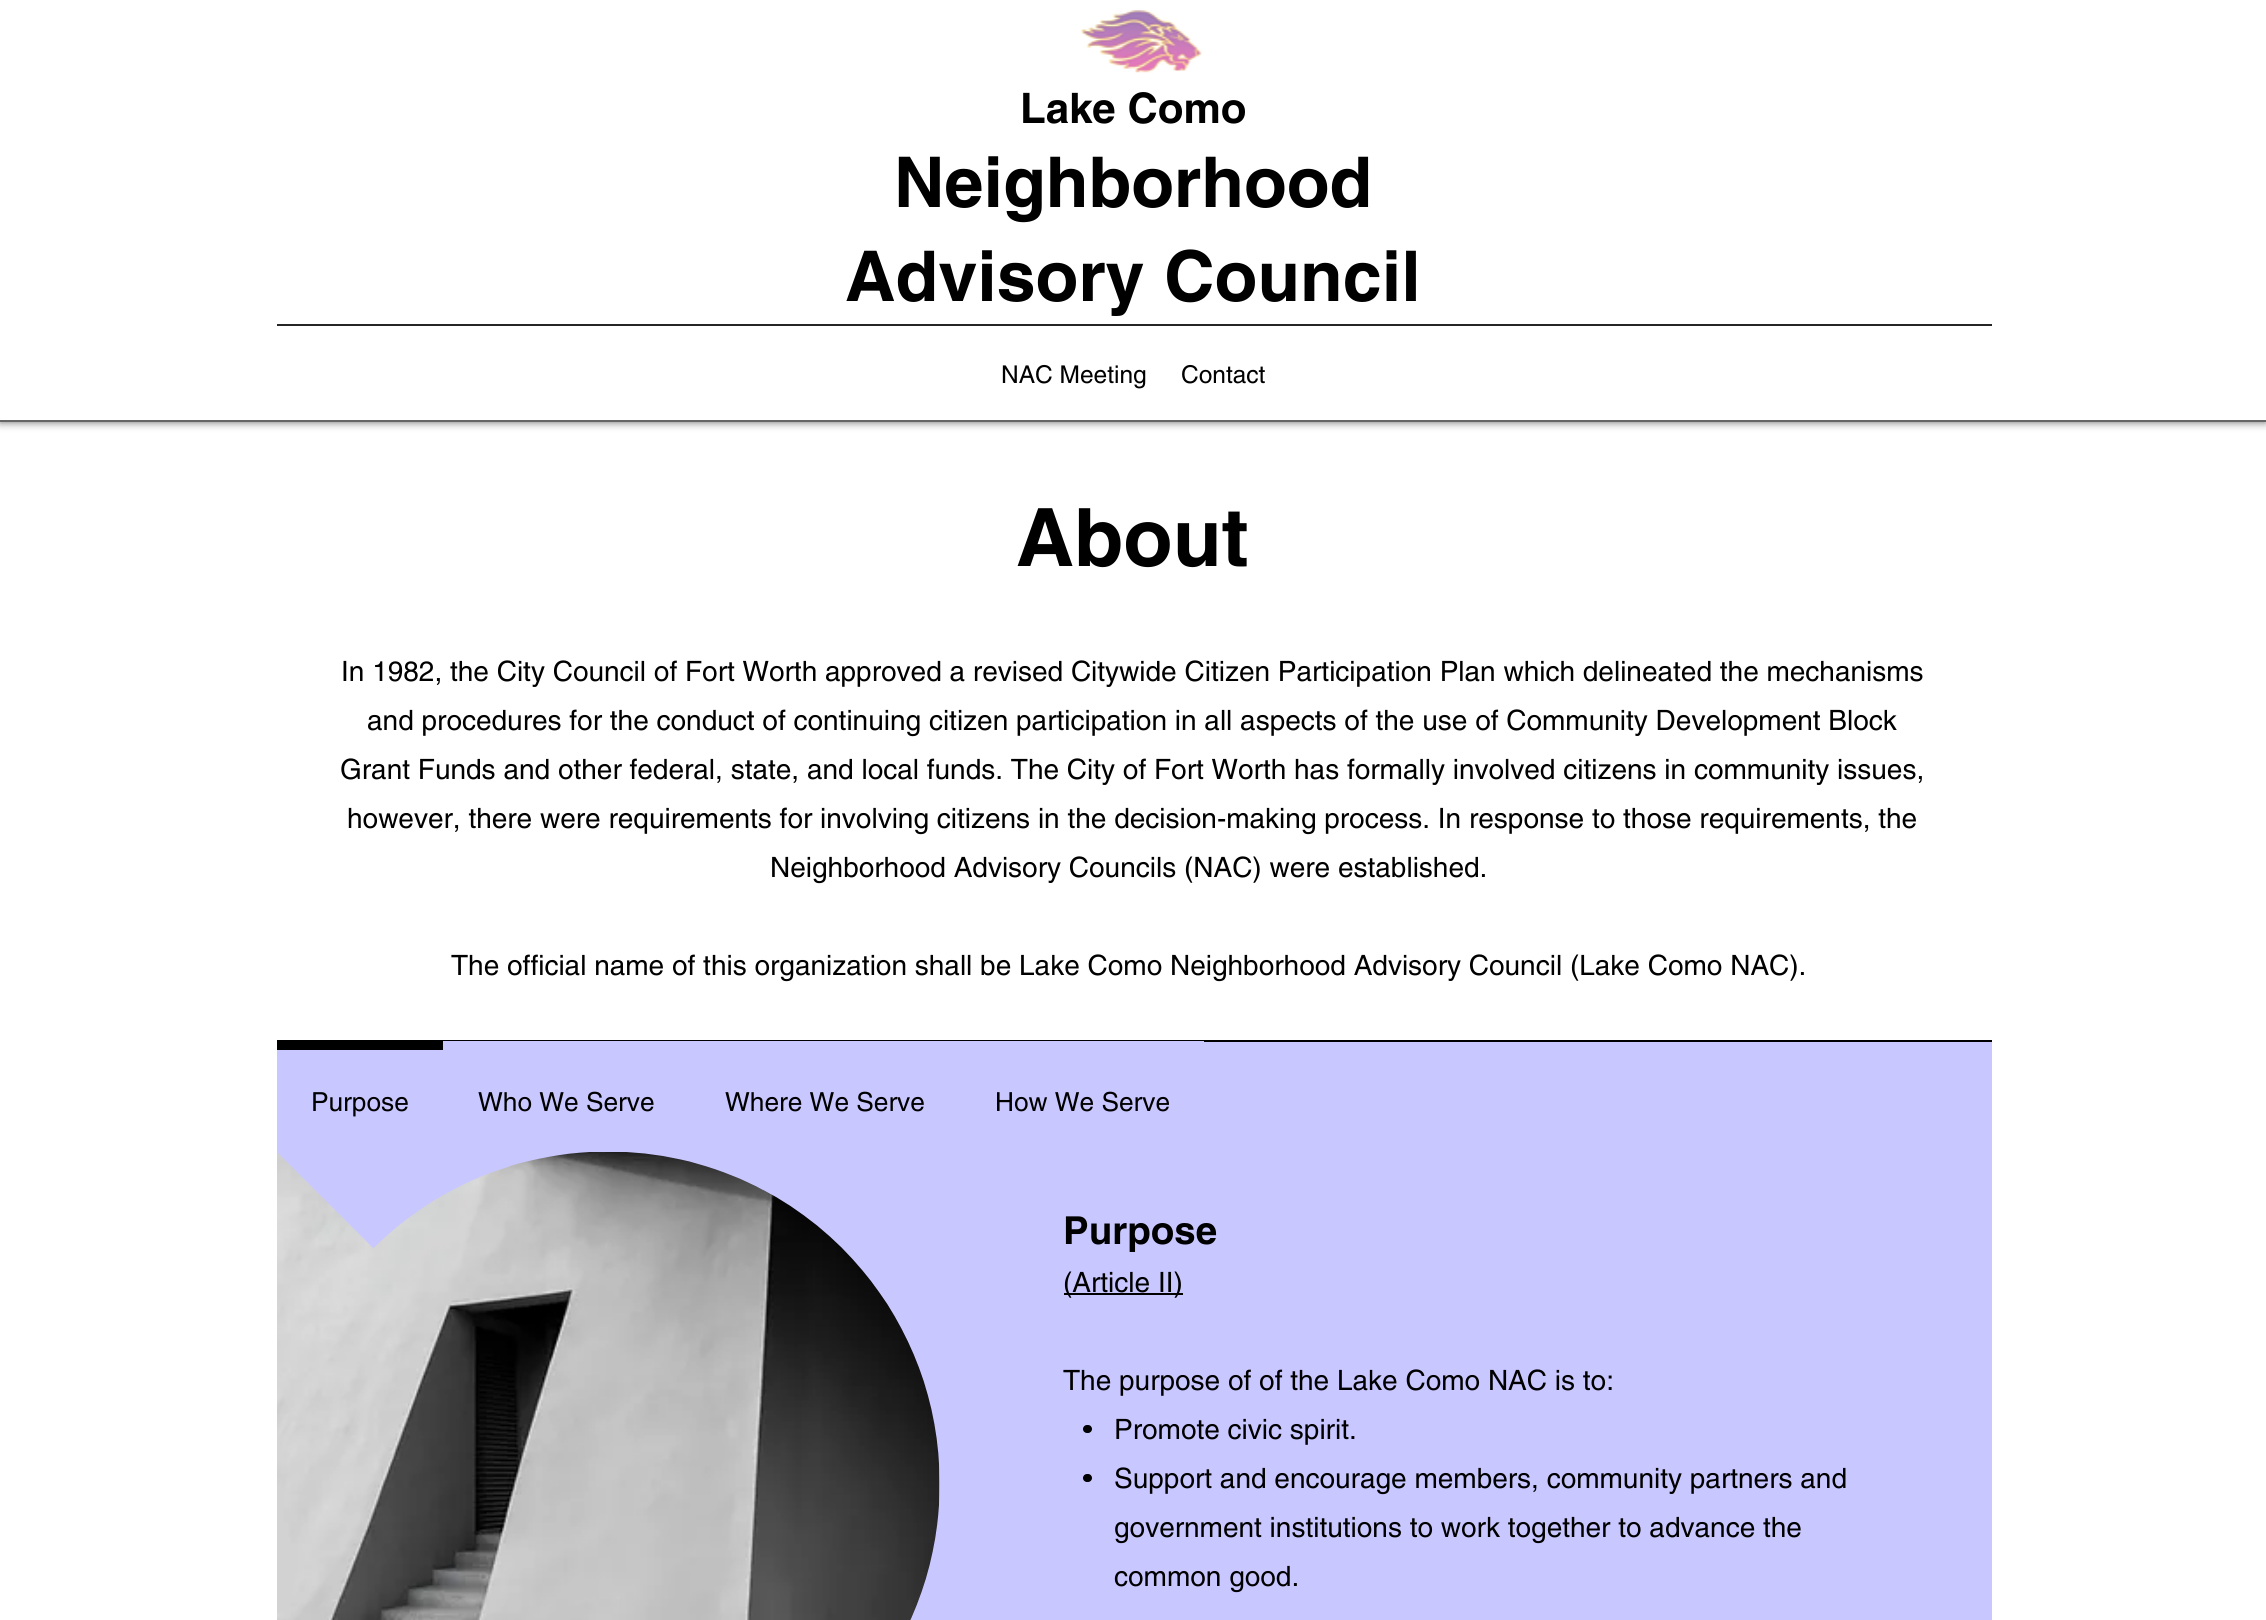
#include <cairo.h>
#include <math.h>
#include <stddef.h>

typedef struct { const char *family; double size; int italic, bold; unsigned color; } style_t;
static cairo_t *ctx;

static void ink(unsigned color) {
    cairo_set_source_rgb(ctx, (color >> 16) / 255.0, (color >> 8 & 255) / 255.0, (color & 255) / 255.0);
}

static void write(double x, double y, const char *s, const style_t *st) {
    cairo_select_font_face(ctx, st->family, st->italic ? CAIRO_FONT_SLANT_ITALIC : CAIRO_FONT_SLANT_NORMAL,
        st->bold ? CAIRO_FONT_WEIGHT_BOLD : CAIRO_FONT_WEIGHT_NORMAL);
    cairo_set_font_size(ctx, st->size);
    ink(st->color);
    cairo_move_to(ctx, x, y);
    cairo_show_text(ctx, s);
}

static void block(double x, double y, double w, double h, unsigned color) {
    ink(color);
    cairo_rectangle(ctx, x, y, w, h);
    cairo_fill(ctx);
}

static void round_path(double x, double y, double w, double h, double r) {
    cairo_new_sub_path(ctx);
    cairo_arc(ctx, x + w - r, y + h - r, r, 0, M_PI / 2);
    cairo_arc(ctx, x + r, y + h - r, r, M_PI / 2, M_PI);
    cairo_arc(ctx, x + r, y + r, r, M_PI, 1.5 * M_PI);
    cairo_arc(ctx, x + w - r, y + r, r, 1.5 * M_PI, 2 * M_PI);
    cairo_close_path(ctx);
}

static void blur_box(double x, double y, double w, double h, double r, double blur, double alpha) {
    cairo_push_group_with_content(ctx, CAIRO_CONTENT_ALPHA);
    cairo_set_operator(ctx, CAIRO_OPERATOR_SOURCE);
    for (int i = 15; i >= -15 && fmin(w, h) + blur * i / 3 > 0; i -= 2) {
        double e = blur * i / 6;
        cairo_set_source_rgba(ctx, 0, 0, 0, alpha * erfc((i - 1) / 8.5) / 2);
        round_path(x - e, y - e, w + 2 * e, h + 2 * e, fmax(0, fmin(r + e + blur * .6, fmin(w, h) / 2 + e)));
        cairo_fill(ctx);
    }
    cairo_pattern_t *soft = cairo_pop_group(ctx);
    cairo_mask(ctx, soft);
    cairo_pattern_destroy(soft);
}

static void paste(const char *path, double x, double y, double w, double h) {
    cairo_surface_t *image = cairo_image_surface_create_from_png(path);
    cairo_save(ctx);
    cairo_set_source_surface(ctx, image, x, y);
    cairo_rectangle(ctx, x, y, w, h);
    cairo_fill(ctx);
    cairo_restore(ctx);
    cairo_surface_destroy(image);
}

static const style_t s1 = {"helvetica", 42, 0, 1, 0x000000};
static const style_t s2 = {"helvetica", 70, 0, 1, 0x000000};
static const style_t s3 = {"helvetica", 24.5, 0, 0, 0x000000};
static const style_t s4 = {"helvetica", 80.5, 0, 1, 0x000000};
static const style_t s5 = {"helvetica", 28, 0, 0, 0x000000};
static const style_t s6 = {"helvetica", 26.25, 0, 0, 0x000000};
static const style_t s7 = {"helvetica", 38.5, 0, 1, 0x000000};

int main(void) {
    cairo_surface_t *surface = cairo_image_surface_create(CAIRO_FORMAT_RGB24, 2266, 1620);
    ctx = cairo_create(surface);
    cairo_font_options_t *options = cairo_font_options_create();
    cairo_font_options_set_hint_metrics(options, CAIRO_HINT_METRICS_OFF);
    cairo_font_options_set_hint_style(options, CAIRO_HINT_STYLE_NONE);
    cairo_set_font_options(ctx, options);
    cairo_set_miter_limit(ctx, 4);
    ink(0xffffff);
    cairo_paint(ctx);
    ink(0x000000);
    blur_box(0, 0, 2266, 422, 0, 4.5, 0.6);
    block(0, 0, 2266, 420, 0xffffff);
    block(0, 420, 2266, 2, 0x666666);
    paste("pic1.png", 1080, 10, 122, 63);
    write(1020, 123, "Lake Como", &s1);
    write(894, 207, "Neighborhood", &s2);
    write(845, 301, "Advisory Council", &s2);
    block(277, 324, 1715, 2, 0x262626);
    write(1001, 383, "NAC Meeting", &s3);
    write(1181, 383, "Contact", &s3);
    write(1016, 566, "About", &s4);
    write(341, 681, "In 1982, the City Council of Fort Worth approved a revised Citywide Citizen Participation Plan which delineated the mechanisms", &s5);
    write(367, 730, "and procedures for the conduct of continuing citizen participation in all aspects of the use of Community Development Block", &s5);
    write(340, 779, "Grant Funds and other federal, state, and local funds. The City of Fort Worth has formally involved citizens in community issues,", &s5);
    write(347, 828, "however, there were requirements for involving citizens in the decision-making process. In response to those requirements, the", &s5);
    write(770, 877, "Neighborhood Advisory Councils (NAC) were established.", &s5);
    write(451, 975, "The official name of this organization shall be Lake Como Neighborhood Advisory Council (Lake Como NAC).", &s5);
    block(277, 1040, 1715, 2, 0x000000);
    block(277, 1042, 1715, 578, 0xc9c7ff);
    block(277, 1042, 166, 8, 0x000000);
    write(311, 1111, "Purpose", &s6);
    block(443, 1041, 761, 1, 0xc9c7ff);
    write(478, 1111, "Who We Serve", &s6);
    write(725, 1111, "Where We Serve", &s6);
    write(995, 1111, "How We Serve", &s6);
    paste("pic2.png", 277, 1152, 663, 468);
    write(1063, 1244, "Purpose", &s7);
    block(1064, 1293, 119, 2, 0x000000);
    write(1063, 1292, "(Article II)", &s5);
    write(1063, 1390, "The purpose of of the Lake Como NAC is to:", &s5);
    round_path(1083, 1425, 9, 8, 4);
    cairo_fill(ctx);
    write(1114, 1439, "Promote civic spirit.", &s5);
    round_path(1083, 1474, 9, 8, 4);
    cairo_fill(ctx);
    write(1114, 1488, "Support and encourage members, community partners and", &s5);
    write(1114, 1537, "government institutions to work together to advance the", &s5);
    write(1114, 1586, "common good.", &s5);
    cairo_surface_write_to_png(surface, "screenshot.png");
    cairo_font_options_destroy(options);
    cairo_destroy(ctx);
    cairo_surface_destroy(surface);
    return 0;
}
